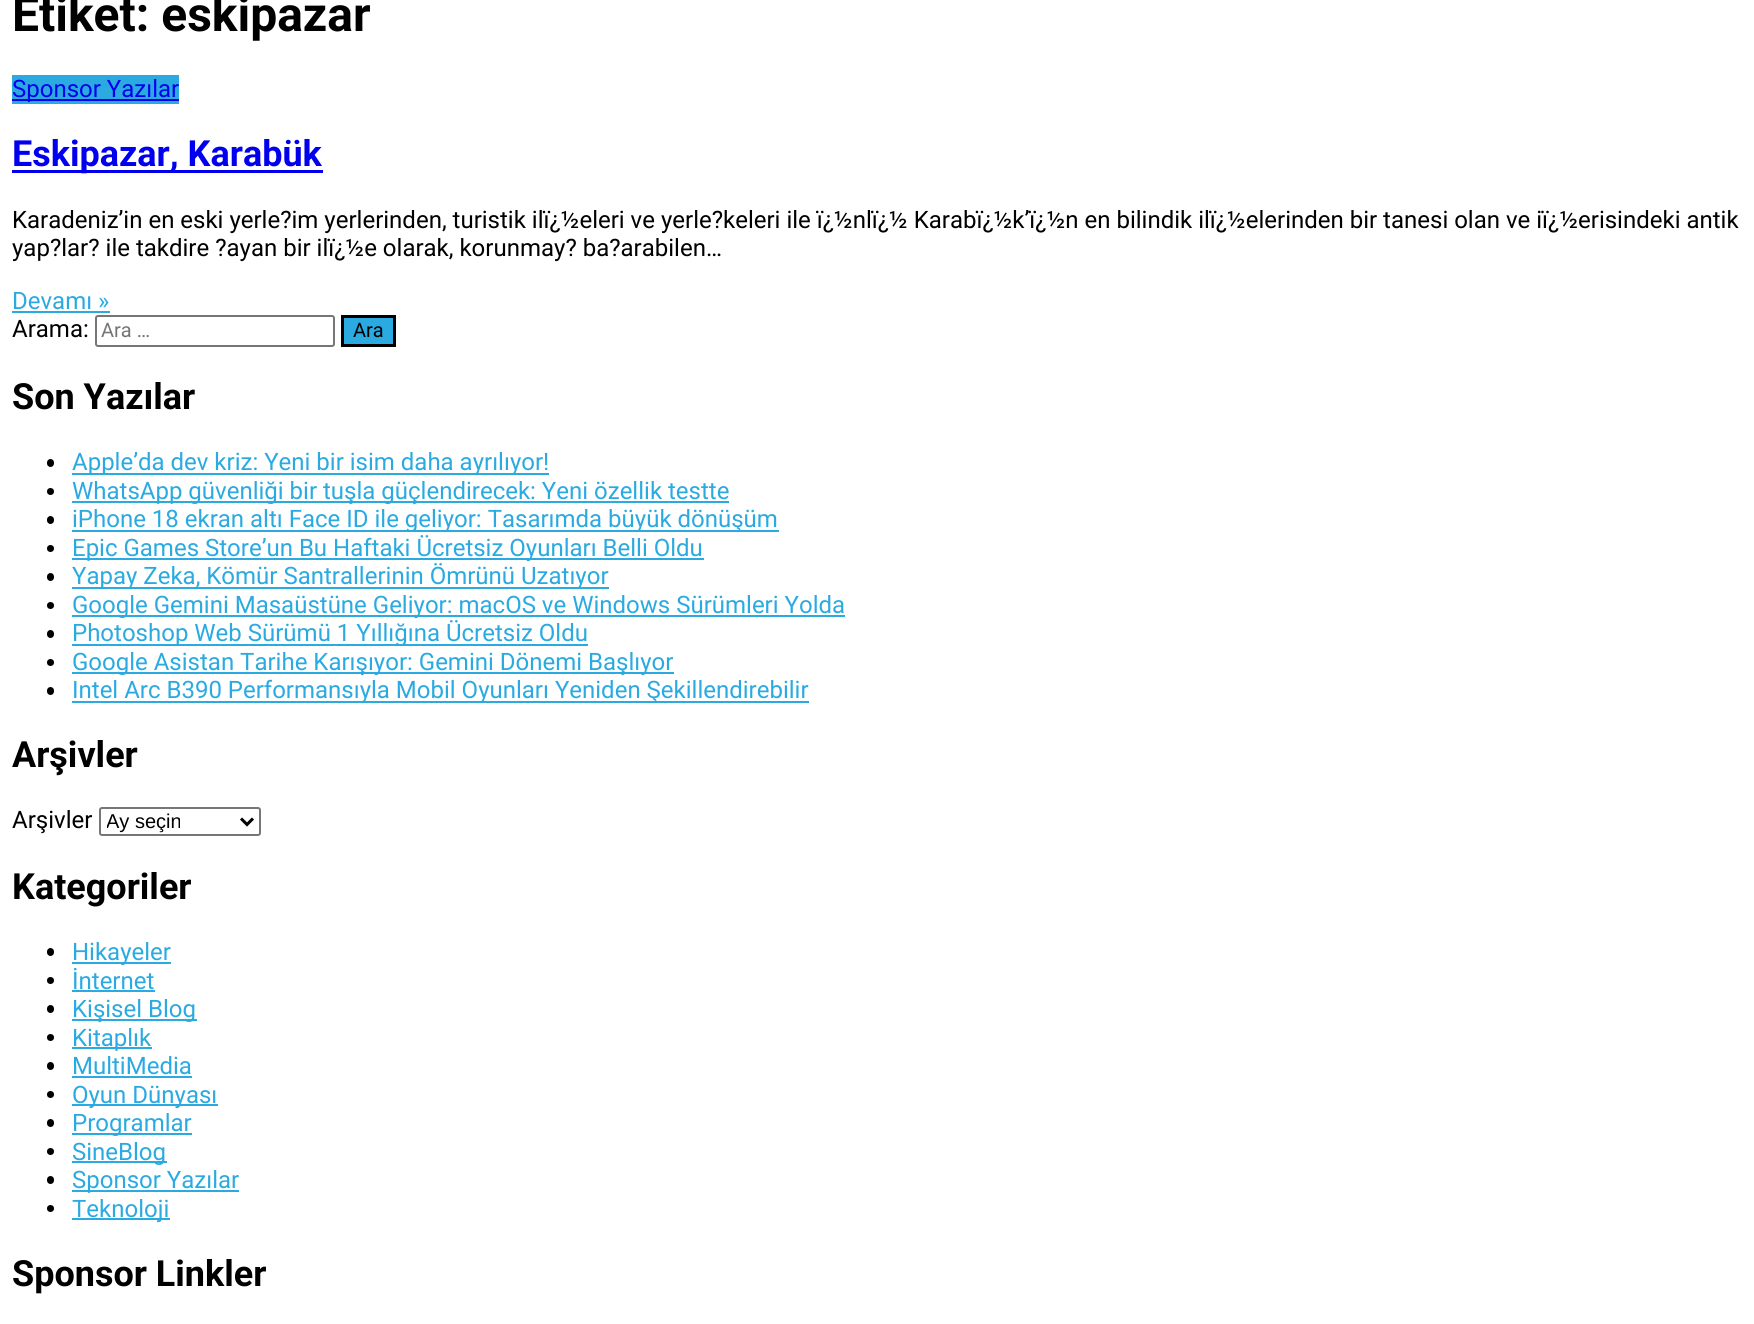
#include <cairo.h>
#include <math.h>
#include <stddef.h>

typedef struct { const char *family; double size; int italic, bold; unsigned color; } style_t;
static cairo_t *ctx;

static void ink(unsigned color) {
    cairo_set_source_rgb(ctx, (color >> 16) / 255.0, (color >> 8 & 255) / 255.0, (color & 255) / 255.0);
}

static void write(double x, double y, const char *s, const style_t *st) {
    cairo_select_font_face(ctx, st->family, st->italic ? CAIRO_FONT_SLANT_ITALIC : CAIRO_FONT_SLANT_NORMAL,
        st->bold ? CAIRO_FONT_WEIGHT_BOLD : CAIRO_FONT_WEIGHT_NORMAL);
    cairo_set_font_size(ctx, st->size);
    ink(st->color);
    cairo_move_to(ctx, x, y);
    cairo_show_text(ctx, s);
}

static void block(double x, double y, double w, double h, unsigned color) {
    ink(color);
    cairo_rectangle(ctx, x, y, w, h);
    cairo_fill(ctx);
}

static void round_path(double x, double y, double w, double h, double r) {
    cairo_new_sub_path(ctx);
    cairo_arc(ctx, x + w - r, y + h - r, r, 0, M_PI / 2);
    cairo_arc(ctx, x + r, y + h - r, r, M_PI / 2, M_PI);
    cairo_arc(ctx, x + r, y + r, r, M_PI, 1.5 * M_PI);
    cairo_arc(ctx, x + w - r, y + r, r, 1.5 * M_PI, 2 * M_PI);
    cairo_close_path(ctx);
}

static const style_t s1 = {"Roboto", 48, 0, 1, 0x000000};
static const style_t s2 = {"Roboto", 24, 0, 0, 0x0000ee};
static const style_t s3 = {"Roboto", 36, 0, 1, 0x0000ee};
static const style_t s4 = {"Roboto", 24, 0, 0, 0x000000};
static const style_t s5 = {"Roboto", 24, 0, 0, 0x2baae1};
static const style_t s6 = {"Roboto", 20, 0, 0, 0x757575};
static const style_t s7 = {"Roboto", 20, 0, 0, 0x000000};
static const style_t s8 = {"Roboto", 36, 0, 1, 0x000000};
static const style_t s9 = {"Liberation Sans", 20, 0, 0, 0x000000};

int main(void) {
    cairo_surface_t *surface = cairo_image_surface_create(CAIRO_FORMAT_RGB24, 1754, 1324);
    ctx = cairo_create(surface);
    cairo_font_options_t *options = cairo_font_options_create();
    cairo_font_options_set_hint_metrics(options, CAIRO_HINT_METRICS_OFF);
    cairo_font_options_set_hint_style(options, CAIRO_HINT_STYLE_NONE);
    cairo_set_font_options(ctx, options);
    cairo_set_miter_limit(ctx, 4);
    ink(0xffffff);
    cairo_paint(ctx);
    write(12, 31, "Etiket: eskipazar", &s1);
    block(12, 75, 167, 29, 0x2baae1);
    block(12, 99, 167, 2, 0x0000ee);
    write(12, 97, "Sponsor Yazılar", &s2);
    block(12, 170, 311, 3, 0x0000ee);
    write(12, 166, "Eskipazar, Karabük", &s3);
    write(12, 228, "Karadeniz’in en eski yerle?im yerlerinden, turistik ilï¿½eleri ve yerle?keleri ile ï¿½nlï¿½ Karabï¿½k’ï¿½n en bilindik ilï¿½elerinden bir tanesi olan ve iï¿½erisindeki antik", &s4);
    write(12, 256, "yap?lar? ile takdire ?ayan bir ilï¿½e olarak, korunmay? ba?arabilen…", &s4);
    write(12, 309, "Devamı »", &s5);
    block(12, 311, 98, 2, 0x2baae1);
    write(12, 337, "Arama:", &s4);
    round_path(96, 316, 238, 30, 2);
    ink(0x767676);
    cairo_stroke(ctx);
    write(101, 337, "Ara …", &s6);
    ink(0x2baae1);
    cairo_rectangle(ctx, 342.5, 316.5, 52, 29);
    cairo_fill_preserve(ctx);
    ink(0x000000);
    cairo_set_line_width(ctx, 3);
    cairo_stroke(ctx);
    write(353, 337, "Ara", &s7);
    write(12, 409, "Son Yazılar", &s8);
    round_path(47, 459, 7, 8, 3.5);
    cairo_fill(ctx);
    block(72, 473, 477, 2, 0x2baae1);
    write(72, 470, "Apple’da dev kriz: Yeni bir isim daha ayrılıyor!", &s5);
    ink(0x000000);
    cairo_new_path(ctx);
    cairo_arc(ctx, 50.5, 491.5, 3.5, 0, 2 * M_PI);
    cairo_fill(ctx);
    block(72, 501, 657, 2, 0x2baae1);
    write(72, 499, "WhatsApp güvenliği bir tuşla güçlendirecek: Yeni özellik testte", &s5);
    ink(0x000000);
    round_path(47, 516, 7, 8, 3.5);
    cairo_fill(ctx);
    block(72, 530, 707, 2, 0x2baae1);
    write(72, 527, "iPhone 18 ekran altı Face ID ile geliyor: Tasarımda büyük dönüşüm", &s5);
    ink(0x000000);
    cairo_new_path(ctx);
    cairo_arc(ctx, 50.5, 548.5, 3.5, 0, 2 * M_PI);
    cairo_fill(ctx);
    block(72, 558, 632, 2, 0x2baae1);
    write(72, 556, "Epic Games Store’un Bu Haftaki Ücretsiz Oyunları Belli Oldu", &s5);
    ink(0x000000);
    round_path(47, 573, 7, 8, 3.5);
    cairo_fill(ctx);
    block(72, 587, 537, 2, 0x2baae1);
    write(72, 584, "Yapay Zeka, Kömür Santrallerinin Ömrünü Uzatıyor", &s5);
    ink(0x000000);
    cairo_new_path(ctx);
    cairo_arc(ctx, 50.5, 605.5, 3.5, 0, 2 * M_PI);
    cairo_fill(ctx);
    block(72, 615, 773, 2, 0x2baae1);
    write(72, 613, "Google Gemini Masaüstüne Geliyor: macOS ve Windows Sürümleri Yolda", &s5);
    ink(0x000000);
    round_path(47, 630, 7, 8, 3.5);
    cairo_fill(ctx);
    block(72, 644, 516, 2, 0x2baae1);
    write(72, 641, "Photoshop Web Sürümü 1 Yıllığına Ücretsiz Oldu", &s5);
    ink(0x000000);
    cairo_new_path(ctx);
    cairo_arc(ctx, 50.5, 662.5, 3.5, 0, 2 * M_PI);
    cairo_fill(ctx);
    block(72, 672, 602, 2, 0x2baae1);
    write(72, 670, "Google Asistan Tarihe Karışıyor: Gemini Dönemi Başlıyor", &s5);
    ink(0x000000);
    round_path(47, 687, 7, 8, 3.5);
    cairo_fill(ctx);
    block(72, 701, 737, 2, 0x2baae1);
    write(72, 698, "Intel Arc B390 Performansıyla Mobil Oyunları Yeniden Şekillendirebilir", &s5);
    write(12, 767, "Arşivler", &s8);
    write(12, 828, "Arşivler", &s4);
    round_path(100, 808, 160, 27, 2);
    ink(0x767676);
    cairo_set_line_width(ctx, 2);
    cairo_stroke(ctx);
    cairo_new_path(ctx);
    cairo_move_to(ctx, 241, 818.5);
    cairo_line_to(ctx, 247, 824.5);
    cairo_line_to(ctx, 253, 818.5);
    ink(0x000000);
    cairo_set_line_width(ctx, 3);
    cairo_stroke(ctx);
    cairo_save(ctx);
    cairo_rectangle(ctx, 107, 809, 129, 25);
    cairo_clip(ctx);
    write(106, 828, "Ay seçin", &s9);
    cairo_restore(ctx);
    write(12, 899, "Kategoriler", &s8);
    round_path(47, 948, 7, 8, 3.5);
    cairo_fill(ctx);
    block(72, 962, 99, 2, 0x2baae1);
    write(72, 960, "Hikayeler", &s5);
    ink(0x000000);
    cairo_new_path(ctx);
    cairo_arc(ctx, 50.5, 980.5, 3.5, 0, 2 * M_PI);
    cairo_fill(ctx);
    write(72, 989, "İnternet", &s5);
    block(72, 990, 83, 2, 0x2baae1);
    ink(0x000000);
    round_path(47, 1005, 7, 8, 3.5);
    cairo_fill(ctx);
    block(72, 1019, 125, 2, 0x2baae1);
    write(72, 1017, "Kişisel Blog", &s5);
    ink(0x000000);
    cairo_new_path(ctx);
    cairo_arc(ctx, 50.5, 1037.5, 3.5, 0, 2 * M_PI);
    cairo_fill(ctx);
    block(72, 1047, 80, 2, 0x2baae1);
    write(72, 1046, "Kitaplık", &s5);
    ink(0x000000);
    round_path(47, 1062, 7, 8, 3.5);
    cairo_fill(ctx);
    write(72, 1074, "MultiMedia", &s5);
    block(72, 1076, 120, 2, 0x2baae1);
    ink(0x000000);
    cairo_new_path(ctx);
    cairo_arc(ctx, 50.5, 1094.5, 3.5, 0, 2 * M_PI);
    cairo_fill(ctx);
    block(72, 1104, 146, 2, 0x2baae1);
    write(72, 1103, "Oyun Dünyası", &s5);
    ink(0x000000);
    round_path(47, 1119, 7, 8, 3.5);
    cairo_fill(ctx);
    block(72, 1133, 120, 2, 0x2baae1);
    write(72, 1131, "Programlar", &s5);
    ink(0x000000);
    cairo_new_path(ctx);
    cairo_arc(ctx, 50.5, 1151.5, 3.5, 0, 2 * M_PI);
    cairo_fill(ctx);
    block(72, 1161, 95, 2, 0x2baae1);
    write(72, 1160, "SineBlog", &s5);
    ink(0x000000);
    round_path(47, 1176, 7, 8, 3.5);
    cairo_fill(ctx);
    block(72, 1190, 167, 2, 0x2baae1);
    write(72, 1188, "Sponsor Yazılar", &s5);
    ink(0x000000);
    cairo_new_path(ctx);
    cairo_arc(ctx, 50.5, 1208.5, 3.5, 0, 2 * M_PI);
    cairo_fill(ctx);
    block(72, 1218, 98, 2, 0x2baae1);
    write(72, 1217, "Teknoloji", &s5);
    write(12, 1286, "Sponsor Linkler", &s8);
    cairo_surface_write_to_png(surface, "screenshot.png");
    cairo_font_options_destroy(options);
    cairo_destroy(ctx);
    cairo_surface_destroy(surface);
    return 0;
}
